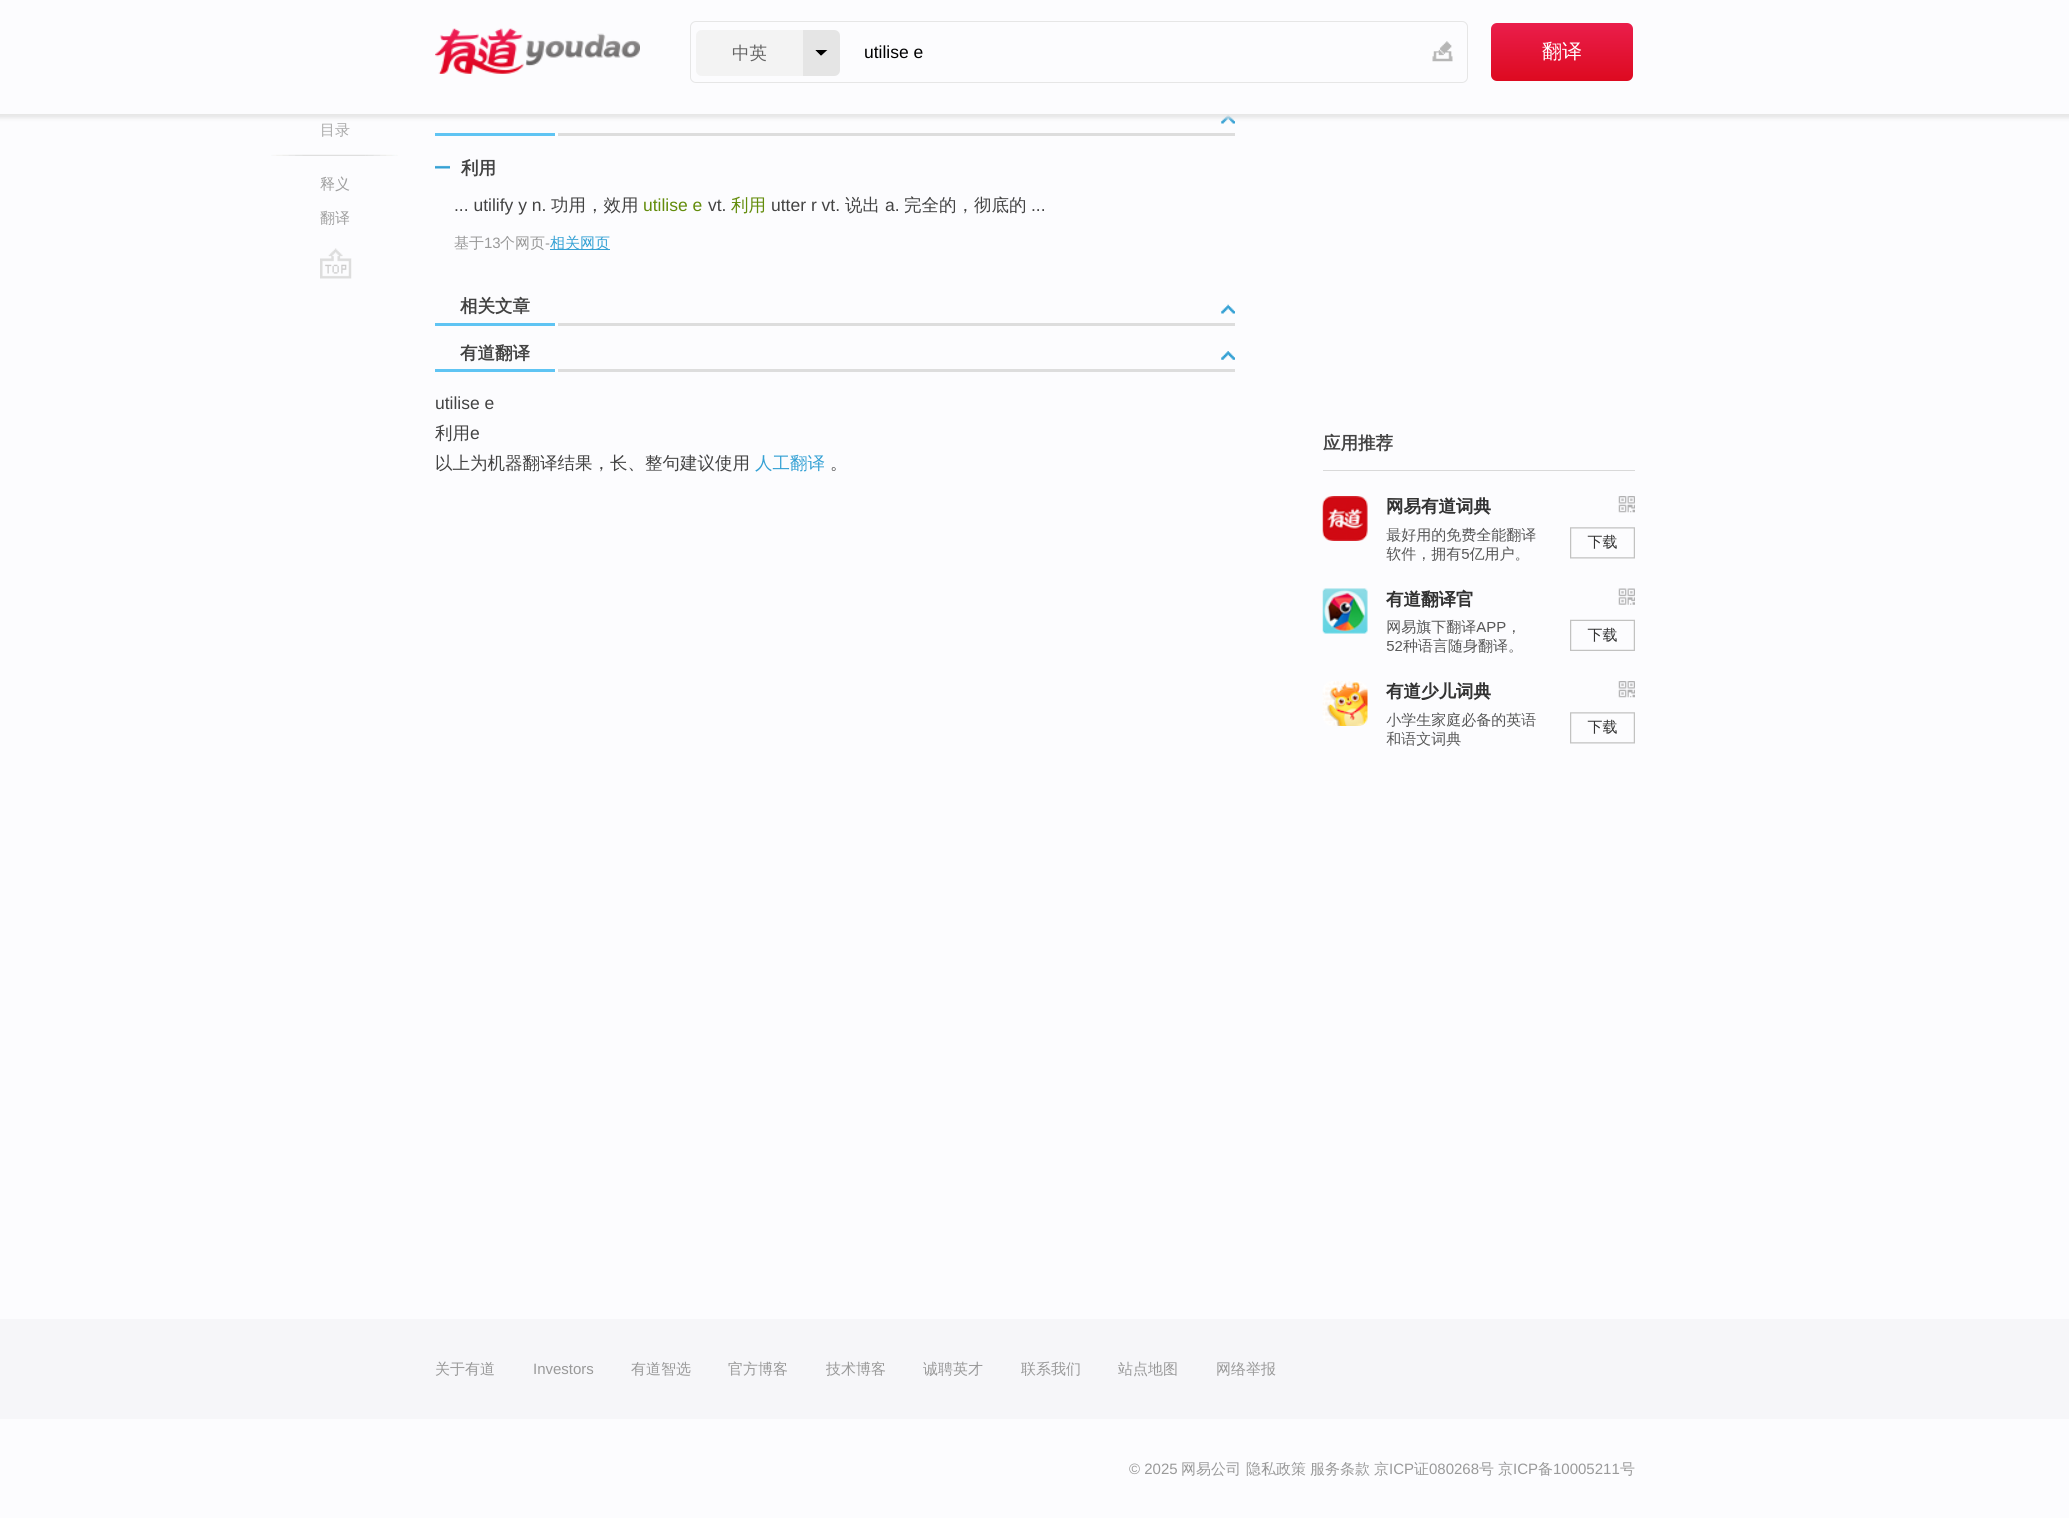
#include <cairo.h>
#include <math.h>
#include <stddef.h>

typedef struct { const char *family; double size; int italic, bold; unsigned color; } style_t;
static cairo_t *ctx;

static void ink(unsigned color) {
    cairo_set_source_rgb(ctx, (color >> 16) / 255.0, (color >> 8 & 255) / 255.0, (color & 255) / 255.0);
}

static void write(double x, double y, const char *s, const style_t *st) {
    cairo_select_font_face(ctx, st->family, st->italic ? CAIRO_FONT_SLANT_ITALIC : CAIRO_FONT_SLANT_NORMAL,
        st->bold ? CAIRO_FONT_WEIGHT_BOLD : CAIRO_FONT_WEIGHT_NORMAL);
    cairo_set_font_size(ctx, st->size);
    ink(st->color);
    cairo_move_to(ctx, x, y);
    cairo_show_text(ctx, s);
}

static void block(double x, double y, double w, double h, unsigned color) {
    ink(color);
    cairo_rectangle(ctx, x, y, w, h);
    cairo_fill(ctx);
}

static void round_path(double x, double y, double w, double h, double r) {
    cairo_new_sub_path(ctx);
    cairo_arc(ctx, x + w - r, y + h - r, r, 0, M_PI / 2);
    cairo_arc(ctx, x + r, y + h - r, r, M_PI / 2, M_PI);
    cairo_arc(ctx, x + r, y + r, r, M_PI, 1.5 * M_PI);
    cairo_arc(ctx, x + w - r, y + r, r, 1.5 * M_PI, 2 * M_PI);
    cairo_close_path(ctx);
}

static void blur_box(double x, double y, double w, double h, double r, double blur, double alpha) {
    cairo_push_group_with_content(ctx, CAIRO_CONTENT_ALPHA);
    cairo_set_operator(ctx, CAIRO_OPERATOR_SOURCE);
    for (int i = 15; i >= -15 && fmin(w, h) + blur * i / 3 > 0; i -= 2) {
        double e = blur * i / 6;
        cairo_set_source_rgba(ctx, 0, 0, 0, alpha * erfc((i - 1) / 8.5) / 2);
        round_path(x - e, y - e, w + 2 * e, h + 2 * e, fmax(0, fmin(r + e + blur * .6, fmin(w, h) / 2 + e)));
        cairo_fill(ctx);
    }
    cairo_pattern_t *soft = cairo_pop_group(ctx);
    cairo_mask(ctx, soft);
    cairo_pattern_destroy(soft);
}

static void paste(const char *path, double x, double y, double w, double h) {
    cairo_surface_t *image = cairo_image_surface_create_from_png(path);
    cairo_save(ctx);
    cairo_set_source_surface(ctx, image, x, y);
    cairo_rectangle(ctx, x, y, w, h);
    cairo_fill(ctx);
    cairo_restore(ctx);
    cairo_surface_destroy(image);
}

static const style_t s1 = {"WenQuanYi Zen Hei Medium", 17.5, 0, 0, 0x656565};
static const style_t s2 = {"Liberation Sans", 17.5, 0, 0, 0x000000};
static const style_t s3 = {"WenQuanYi Zen Hei Medium", 20, 0, 0, 0xffffff};
static const style_t s4 = {"WenQuanYi Zen Hei Medium", 15, 0, 0, 0xaaaaaa};
static const style_t s5 = {"WenQuanYi Zen Hei Medium", 15, 0, 0, 0xa0a0a0};
static const style_t s6 = {"WenQuanYi Zen Hei", 17.5, 0, 1, 0x434343};
static const style_t s7 = {"Liberation Sans", 17.5, 0, 0, 0x434343};
static const style_t s8 = {"WenQuanYi Zen Hei Medium", 17.5, 0, 0, 0x434343};
static const style_t s9 = {"Liberation Sans", 17.5, 0, 0, 0x638c0b};
static const style_t s10 = {"WenQuanYi Zen Hei Medium", 17.5, 0, 0, 0x638c0b};
static const style_t s11 = {"WenQuanYi Zen Hei Medium", 15, 0, 0, 0x999999};
static const style_t s12 = {"Liberation Sans", 15, 0, 0, 0x999999};
static const style_t s13 = {"WenQuanYi Zen Hei Medium", 15, 0, 0, 0x35a1d4};
static const style_t s14 = {"WenQuanYi Zen Hei Medium", 17.5, 0, 0, 0x35a1d4};

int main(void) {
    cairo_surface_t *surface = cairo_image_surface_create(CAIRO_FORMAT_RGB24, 2069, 1518);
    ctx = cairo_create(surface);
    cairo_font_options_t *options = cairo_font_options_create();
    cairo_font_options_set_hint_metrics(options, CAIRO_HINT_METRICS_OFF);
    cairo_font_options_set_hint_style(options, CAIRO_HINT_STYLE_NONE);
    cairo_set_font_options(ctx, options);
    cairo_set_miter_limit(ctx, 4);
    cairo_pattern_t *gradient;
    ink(0xfcfcfe);
    cairo_paint(ctx);
    paste("pic5.png", 1221, 114, 14, 10);
    ink(0xe6e6e6);
    blur_box(-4, -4, 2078, 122, 0, 2, 1);
    block(0, 0, 2069, 114, 0xfcfcfe);
    paste("pic1.png", 435, 28, 205, 46);
    round_path(690.5, 21.5, 777, 61, 5.5);
    ink(0xe6e6e6);
    cairo_set_line_width(ctx, 1);
    cairo_stroke(ctx);
    ink(0xf3f3f3);
    cairo_new_path(ctx);
    cairo_move_to(ctx, 702, 30);
    cairo_line_to(ctx, 803, 30);
    cairo_line_to(ctx, 803, 76);
    cairo_line_to(ctx, 702, 76);
    cairo_curve_to(ctx, 698.5, 76, 696, 73.5, 696, 70);
    cairo_line_to(ctx, 696, 36);
    cairo_curve_to(ctx, 696, 32.5, 698.5, 30, 702, 30);
    cairo_close_path(ctx);
    cairo_fill(ctx);
    write(732, 59, "中英", &s1);
    ink(0xe5e5e5);
    cairo_new_path(ctx);
    cairo_move_to(ctx, 803, 30);
    cairo_line_to(ctx, 834, 30);
    cairo_curve_to(ctx, 837.5, 30, 840, 32.5, 840, 36);
    cairo_line_to(ctx, 840, 70);
    cairo_curve_to(ctx, 840, 73.5, 837.5, 76, 834, 76);
    cairo_line_to(ctx, 803, 76);
    cairo_close_path(ctx);
    cairo_fill(ctx);
    ink(0x000000);
    cairo_new_path(ctx);
    cairo_move_to(ctx, 815, 50);
    cairo_line_to(ctx, 827.5, 50);
    cairo_line_to(ctx, 821, 56);
    cairo_close_path(ctx);
    cairo_fill(ctx);
    ink(0xe5e5e5);
    cairo_new_path(ctx);
    cairo_move_to(ctx, 827.5, 50);
    cairo_line_to(ctx, 827.5, 62.5);
    cairo_line_to(ctx, 821, 56);
    cairo_close_path(ctx);
    cairo_move_to(ctx, 815, 62.5);
    cairo_line_to(ctx, 815, 50);
    cairo_line_to(ctx, 821, 56);
    cairo_close_path(ctx);
    cairo_fill(ctx);
    write(864, 58, "utilise e", &s2);
    paste("pic2.png", 1432, 41, 21, 21);
    gradient = cairo_pattern_create_linear(1562, 22, 1562, 81);
    cairo_pattern_add_color_stop_rgba(gradient, 0, 0.918, 0.118, 0.298, 1);
    cairo_pattern_add_color_stop_rgba(gradient, 1, 0.867, 0.039, 0.125, 1);
    cairo_set_source(ctx, gradient);
    cairo_pattern_destroy(gradient);
    round_path(1491, 23, 142, 58, 6);
    cairo_fill(ctx);
    write(1542, 58, "翻译", &s3);
    write(320, 135, "目录", &s4);
    paste("pic3.png", 271, 154, 127, 2);
    write(320, 189, "释义", &s5);
    write(320, 223, "翻译", &s5);
    paste("pic4.png", 320, 248, 32, 31);
    block(558, 133, 677, 3, 0xdddddd);
    block(555, 133, 3, 3, 0xffffff);
    block(435, 133, 120, 3, 0x5fc4f3);
    paste("pic6.png", 435, 165, 15, 4);
    write(461, 174, "利用", &s6);
    write(454, 211, "... utilify y n.", &s7);
    write(551, 211, "功用，效用", &s8);
    write(643, 211, "utilise e", &s9);
    write(708, 211, "vt.", &s7);
    write(731, 211, "利用", &s10);
    write(771, 211, "utter r vt.", &s7);
    write(845, 211, "说出", &s8);
    write(885, 211, "a.", &s7);
    write(904, 211, "完全的，彻底的", &s8);
    write(1031, 211, "...", &s7);
    write(454, 248, "基于", &s11);
    write(484, 248, "13", &s12);
    write(500, 248, "个网页", &s11);
    write(545, 248, "-", &s12);
    block(550, 249, 60, 1, 0x35a1d4);
    write(550, 248, "相关网页", &s13);
    block(558, 323, 677, 3, 0xdddddd);
    block(555, 323, 3, 3, 0xffffff);
    block(435, 323, 120, 3, 0x5fc4f3);
    write(460, 312, "相关文章", &s6);
    paste("pic5.png", 1221, 304, 14, 10);
    block(558, 369, 677, 3, 0xdddddd);
    block(555, 369, 3, 3, 0xffffff);
    block(435, 369, 120, 3, 0x5fc4f3);
    write(460, 359, "有道翻译", &s6);
    paste("pic7.png", 1221, 351, 14, 9);
    write(435, 409, "utilise e", &s7);
    write(435, 439, "利用", &s8);
    write(470, 439, "e", &s7);
    write(435, 469, "以上为机器翻译结果，长、整句建议使用", &s8);
    write(755, 469, "人工翻译", &s14);
    write(830, 469, "。", &s8);
    block(1323, 470, 312, 1, 0xd9d9d9);
    write(1323, 449, "应用推荐", &s6);
    paste("pic8.png", 1322, 496, 313, 251);
    block(0, 1319, 2069, 100, 0xf6f6f9);
    write(435, 1374, "关于有道", &s11);
    write(533, 1374, "Investors", &s12);
    write(631, 1374, "有道智选", &s11);
    write(728, 1374, "官方博客", &s11);
    write(826, 1374, "技术博客", &s11);
    write(923, 1374, "诚聘英才", &s11);
    write(1021, 1374, "联系我们", &s11);
    write(1118, 1374, "站点地图", &s11);
    write(1216, 1374, "网络举报", &s11);
    write(1129, 1474, "© 2025", &s12);
    write(1181, 1474, "网易公司", &s11);
    write(1246, 1474, "隐私政策", &s11);
    write(1310, 1474, "服务条款", &s11);
    write(1374, 1474, "京", &s11);
    write(1389, 1474, "ICP", &s12);
    write(1414, 1474, "证", &s11);
    write(1429, 1474, "080268", &s12);
    write(1479, 1474, "号", &s11);
    write(1498, 1474, "京", &s11);
    write(1513, 1474, "ICP", &s12);
    write(1538, 1474, "备", &s11);
    write(1553, 1474, "10005211", &s12);
    write(1620, 1474, "号", &s11);
    cairo_surface_write_to_png(surface, "screenshot.png");
    cairo_font_options_destroy(options);
    cairo_destroy(ctx);
    cairo_surface_destroy(surface);
    return 0;
}
